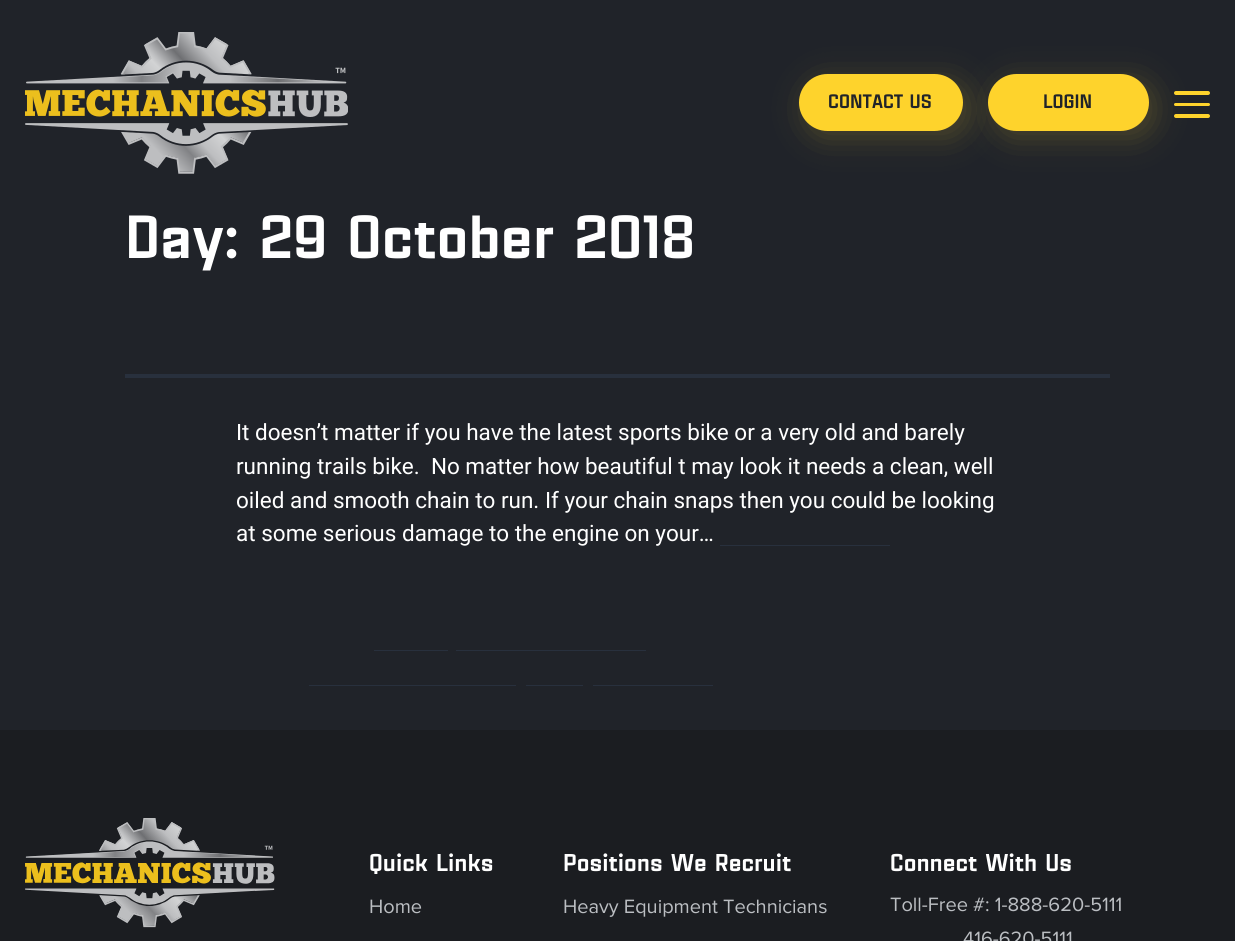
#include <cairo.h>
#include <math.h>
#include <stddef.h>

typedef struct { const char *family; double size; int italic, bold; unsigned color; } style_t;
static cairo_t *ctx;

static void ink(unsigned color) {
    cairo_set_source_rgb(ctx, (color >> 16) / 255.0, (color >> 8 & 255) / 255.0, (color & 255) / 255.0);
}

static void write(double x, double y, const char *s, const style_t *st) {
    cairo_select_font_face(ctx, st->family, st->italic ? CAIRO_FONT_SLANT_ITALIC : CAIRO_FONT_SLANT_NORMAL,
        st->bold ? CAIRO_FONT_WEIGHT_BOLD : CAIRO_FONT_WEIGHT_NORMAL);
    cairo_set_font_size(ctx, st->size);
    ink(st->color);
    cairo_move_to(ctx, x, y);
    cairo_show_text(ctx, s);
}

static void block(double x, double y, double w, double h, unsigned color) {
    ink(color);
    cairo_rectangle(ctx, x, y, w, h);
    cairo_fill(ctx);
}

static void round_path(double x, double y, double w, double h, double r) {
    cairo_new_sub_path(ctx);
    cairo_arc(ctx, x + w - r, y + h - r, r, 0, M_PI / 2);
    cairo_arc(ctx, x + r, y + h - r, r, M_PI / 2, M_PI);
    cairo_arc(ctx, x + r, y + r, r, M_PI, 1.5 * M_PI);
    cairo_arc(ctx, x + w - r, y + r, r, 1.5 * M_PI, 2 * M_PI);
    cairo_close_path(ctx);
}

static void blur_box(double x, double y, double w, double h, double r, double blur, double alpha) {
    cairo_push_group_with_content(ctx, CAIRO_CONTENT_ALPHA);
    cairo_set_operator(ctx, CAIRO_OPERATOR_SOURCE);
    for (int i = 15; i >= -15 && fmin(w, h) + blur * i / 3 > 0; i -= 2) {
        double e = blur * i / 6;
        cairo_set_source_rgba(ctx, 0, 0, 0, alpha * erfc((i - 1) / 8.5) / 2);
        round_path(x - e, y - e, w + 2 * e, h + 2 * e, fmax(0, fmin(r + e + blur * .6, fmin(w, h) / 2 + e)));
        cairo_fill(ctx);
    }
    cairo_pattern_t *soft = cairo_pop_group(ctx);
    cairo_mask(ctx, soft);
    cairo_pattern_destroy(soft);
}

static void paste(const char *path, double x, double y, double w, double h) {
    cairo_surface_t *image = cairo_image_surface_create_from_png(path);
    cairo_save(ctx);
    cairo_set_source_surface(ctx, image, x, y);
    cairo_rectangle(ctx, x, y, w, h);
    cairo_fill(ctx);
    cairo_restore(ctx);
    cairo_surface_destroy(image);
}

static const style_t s1 = {"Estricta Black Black", 20, 0, 0, 0x202329};
static const style_t s2 = {"Estricta Black Black", 62.5, 0, 0, 0xffffff};
static const style_t s3 = {"Roboto", 22.5, 0, 0, 0xffffff};
static const style_t s4 = {"Estricta Black Black", 25, 0, 0, 0xffffff};
static const style_t s5 = {"Proxima Nova", 20, 0, 0, 0xbbbec2};

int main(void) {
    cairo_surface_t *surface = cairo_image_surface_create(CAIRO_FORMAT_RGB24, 1235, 941);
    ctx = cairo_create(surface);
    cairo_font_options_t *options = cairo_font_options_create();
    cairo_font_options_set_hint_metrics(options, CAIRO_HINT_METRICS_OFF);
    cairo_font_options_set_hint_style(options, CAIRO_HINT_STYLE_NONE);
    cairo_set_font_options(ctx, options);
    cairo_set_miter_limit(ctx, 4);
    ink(0x202329);
    cairo_paint(ctx);
    paste("pic1.png", 25, 32, 323, 142);
    ink(0xfed32c);
    blur_box(805, 80, 164, 58, 29, 15.5, 0.2);
    ink(0xfed32c);
    round_path(799, 74, 164, 57, 28.5);
    cairo_fill(ctx);
    write(828, 108, "CONTACT US", &s1);
    ink(0xfed32c);
    blur_box(994, 80, 161, 58, 29, 15.5, 0.2);
    ink(0xfed32c);
    round_path(988, 74, 161, 57, 28.5);
    cairo_fill(ctx);
    write(1043, 108, "LOGIN", &s1);
    ink(0xfed32c);
    round_path(1174, 91, 36, 4, 2);
    cairo_fill(ctx);
    round_path(1174, 103, 36, 3, 1.5);
    cairo_fill(ctx);
    round_path(1174, 114, 36, 4, 2);
    cairo_fill(ctx);
    block(125, 374, 985, 4, 0x28303d);
    write(125, 258, "Day: 29 October 2018", &s2);
    write(236, 440, "It doesn’t matter if you have the latest sports bike or a very old and barely", &s3);
    write(236, 474, "running trails bike.  No matter how beautiful t may look it needs a clean, well", &s3);
    write(236, 508, "oiled and smooth chain to run. If your chain snaps then you could be looking", &s3);
    write(236, 541, "at some serious damage to the engine on your…", &s3);
    block(720, 545, 170, 1, 0x28303d);
    block(374, 650, 74, 1, 0x28303d);
    block(456, 650, 190, 1, 0x28303d);
    block(309, 685, 207, 1, 0x28303d);
    block(526, 685, 57, 1, 0x28303d);
    block(593, 685, 120, 1, 0x28303d);
    block(0, 730, 1235, 211, 0x1b1d21);
    paste("pic2.png", 25, 818, 250, 110);
    write(369, 871, "Quick Links", &s4);
    write(369, 913, "Home", &s5);
    write(563, 871, "Positions We Recruit", &s4);
    write(563, 913, "Heavy Equipment Technicians", &s5);
    write(890, 871, "Connect With Us", &s4);
    write(890, 911, "Toll-Free #: 1-888-620-5111", &s5);
    write(963, 945, "416-620-5111", &s5);
    cairo_surface_write_to_png(surface, "screenshot.png");
    cairo_font_options_destroy(options);
    cairo_destroy(ctx);
    cairo_surface_destroy(surface);
    return 0;
}
